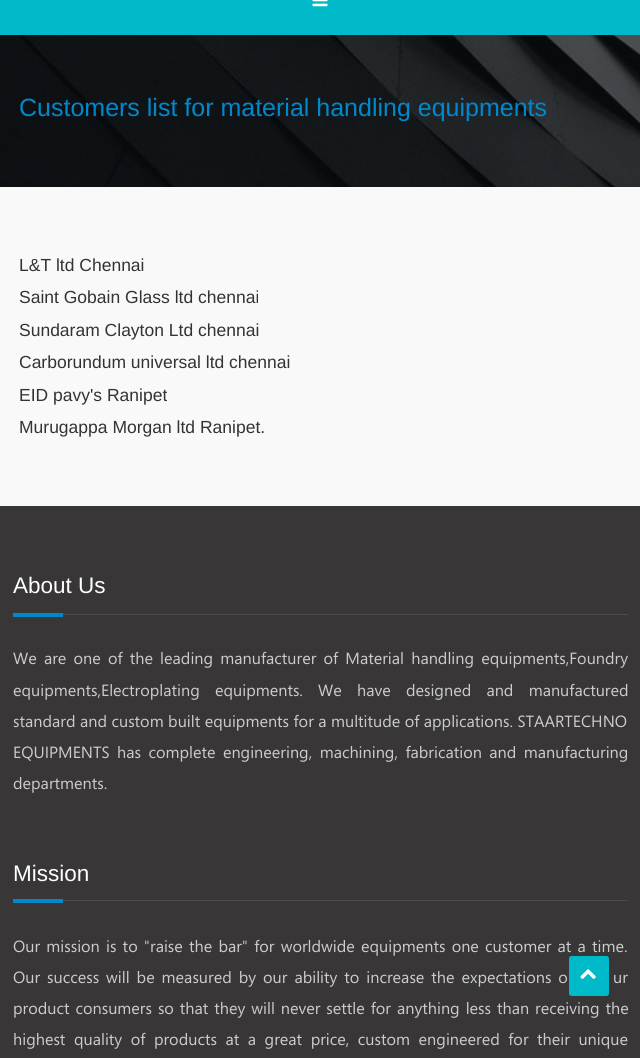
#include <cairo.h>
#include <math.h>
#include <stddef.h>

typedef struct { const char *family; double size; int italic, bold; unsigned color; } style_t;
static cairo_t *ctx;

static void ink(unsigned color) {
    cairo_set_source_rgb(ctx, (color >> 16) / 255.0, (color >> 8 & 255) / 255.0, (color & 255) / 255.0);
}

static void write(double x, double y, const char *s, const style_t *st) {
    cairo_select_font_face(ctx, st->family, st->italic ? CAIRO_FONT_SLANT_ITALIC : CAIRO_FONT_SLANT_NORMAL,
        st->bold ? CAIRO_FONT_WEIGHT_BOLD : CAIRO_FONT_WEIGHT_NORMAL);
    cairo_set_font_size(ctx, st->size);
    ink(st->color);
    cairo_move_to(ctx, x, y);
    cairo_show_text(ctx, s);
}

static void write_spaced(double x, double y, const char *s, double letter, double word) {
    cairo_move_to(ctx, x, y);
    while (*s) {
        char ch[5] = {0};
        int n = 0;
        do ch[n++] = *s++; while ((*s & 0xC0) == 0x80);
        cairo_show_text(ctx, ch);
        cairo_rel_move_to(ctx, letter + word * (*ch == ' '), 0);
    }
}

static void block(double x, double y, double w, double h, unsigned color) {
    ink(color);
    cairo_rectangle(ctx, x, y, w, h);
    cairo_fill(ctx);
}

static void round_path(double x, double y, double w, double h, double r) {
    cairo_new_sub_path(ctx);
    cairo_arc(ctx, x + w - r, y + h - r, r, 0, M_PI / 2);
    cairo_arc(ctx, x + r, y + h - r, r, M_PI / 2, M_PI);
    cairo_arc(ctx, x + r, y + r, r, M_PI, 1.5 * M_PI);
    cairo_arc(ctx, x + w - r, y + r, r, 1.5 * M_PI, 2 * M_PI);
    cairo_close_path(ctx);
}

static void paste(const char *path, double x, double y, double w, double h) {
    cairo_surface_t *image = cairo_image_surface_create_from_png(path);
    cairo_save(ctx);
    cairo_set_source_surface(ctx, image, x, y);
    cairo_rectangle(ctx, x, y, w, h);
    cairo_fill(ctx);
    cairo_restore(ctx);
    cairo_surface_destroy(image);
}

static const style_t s1 = {"Liberation Sans", 25, 0, 0, 0x0088cc};
static const style_t s2 = {"Liberation Sans", 17.5, 0, 0, 0x333333};
static const style_t s3 = {"Liberation Sans", 22.5, 0, 0, 0xffffff};
static const style_t s4 = {"Segoe UI", 16.25, 0, 0, 0xcccccc};

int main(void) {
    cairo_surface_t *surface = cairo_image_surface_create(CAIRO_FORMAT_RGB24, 640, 1058);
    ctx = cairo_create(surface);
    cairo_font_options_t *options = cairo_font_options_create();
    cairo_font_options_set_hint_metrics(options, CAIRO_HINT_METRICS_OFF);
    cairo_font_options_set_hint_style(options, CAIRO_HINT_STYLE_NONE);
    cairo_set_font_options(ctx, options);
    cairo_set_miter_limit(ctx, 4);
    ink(0xf9f9f9);
    cairo_paint(ctx);
    block(0, 0, 640, 35, 0x00bac9);
    paste("pic1.png", 312, 0, 16, 7);
    paste("pic2.png", 0, 35, 640, 152);
    write(19, 116, "Customers list for material handling equipments", &s1);
    write(19, 271, "L&T ltd Chennai", &s2);
    write(19, 303, "Saint Gobain Glass ltd chennai", &s2);
    write(19, 336, "Sundaram Clayton Ltd chennai", &s2);
    write(19, 368, "Carborundum universal ltd chennai", &s2);
    write(19, 401, "EID pavy's Ranipet", &s2);
    write(19, 433, "Murugappa Morgan ltd Ranipet.", &s2);
    block(0, 506, 640, 552, 0x383636);
    write(13, 593, "About Us", &s3);
    block(13, 613, 50, 4, 0x0088cc);
    block(63, 614, 565, 1, 0x4c4a4a);
    cairo_select_font_face(ctx, "Segoe UI", CAIRO_FONT_SLANT_NORMAL, CAIRO_FONT_WEIGHT_NORMAL);
    cairo_set_font_size(ctx, 16.25);
    ink(0xcccccc);
    write_spaced(13, 664, "We are one of the leading manufacturer of Material handling equipments,Foundry", 0, 2.75);
    write_spaced(13, 696, "equipments,Electroplating equipments. We have designed and manufactured", 0, 10.75);
    write(13, 727, "standard and custom built equipments for a multitude of applications. STAARTECHNO", &s4);
    write_spaced(13, 758, "EQUIPMENTS has complete engineering, machining, fabrication and manufacturing", 0, 3);
    write(13, 789, "departments.", &s4);
    write(13, 881, "Mission", &s3);
    block(13, 899, 50, 4, 0x0088cc);
    block(63, 900, 565, 1, 0x4c4a4a);
    cairo_select_font_face(ctx, "Segoe UI", CAIRO_FONT_SLANT_NORMAL, CAIRO_FONT_WEIGHT_NORMAL);
    cairo_set_font_size(ctx, 16.25);
    ink(0xcccccc);
    write_spaced(13, 952, "Our mission is to \"raise the bar\" for worldwide equipments one customer at a time.", 0, 1.75);
    write_spaced(13, 983, "Our success will be measured by our ability to increase the expectations o", 0, 2.5);
    write_spaced(613, 983, "ur", 0, 2.5);
    write_spaced(13, 1014, "product consumers so that they will never settle for anything less than receiving the", 0, 1.5);
    write_spaced(13, 1045, "highest quality of products at a great price, custom engineered for their unique", 0, 4.1);
    ink(0x00bac9);
    round_path(569, 956, 40, 40, 2.5);
    cairo_fill(ctx);
    paste("pic3.png", 580, 969, 16, 10);
    cairo_surface_write_to_png(surface, "screenshot.png");
    cairo_font_options_destroy(options);
    cairo_destroy(ctx);
    cairo_surface_destroy(surface);
    return 0;
}
